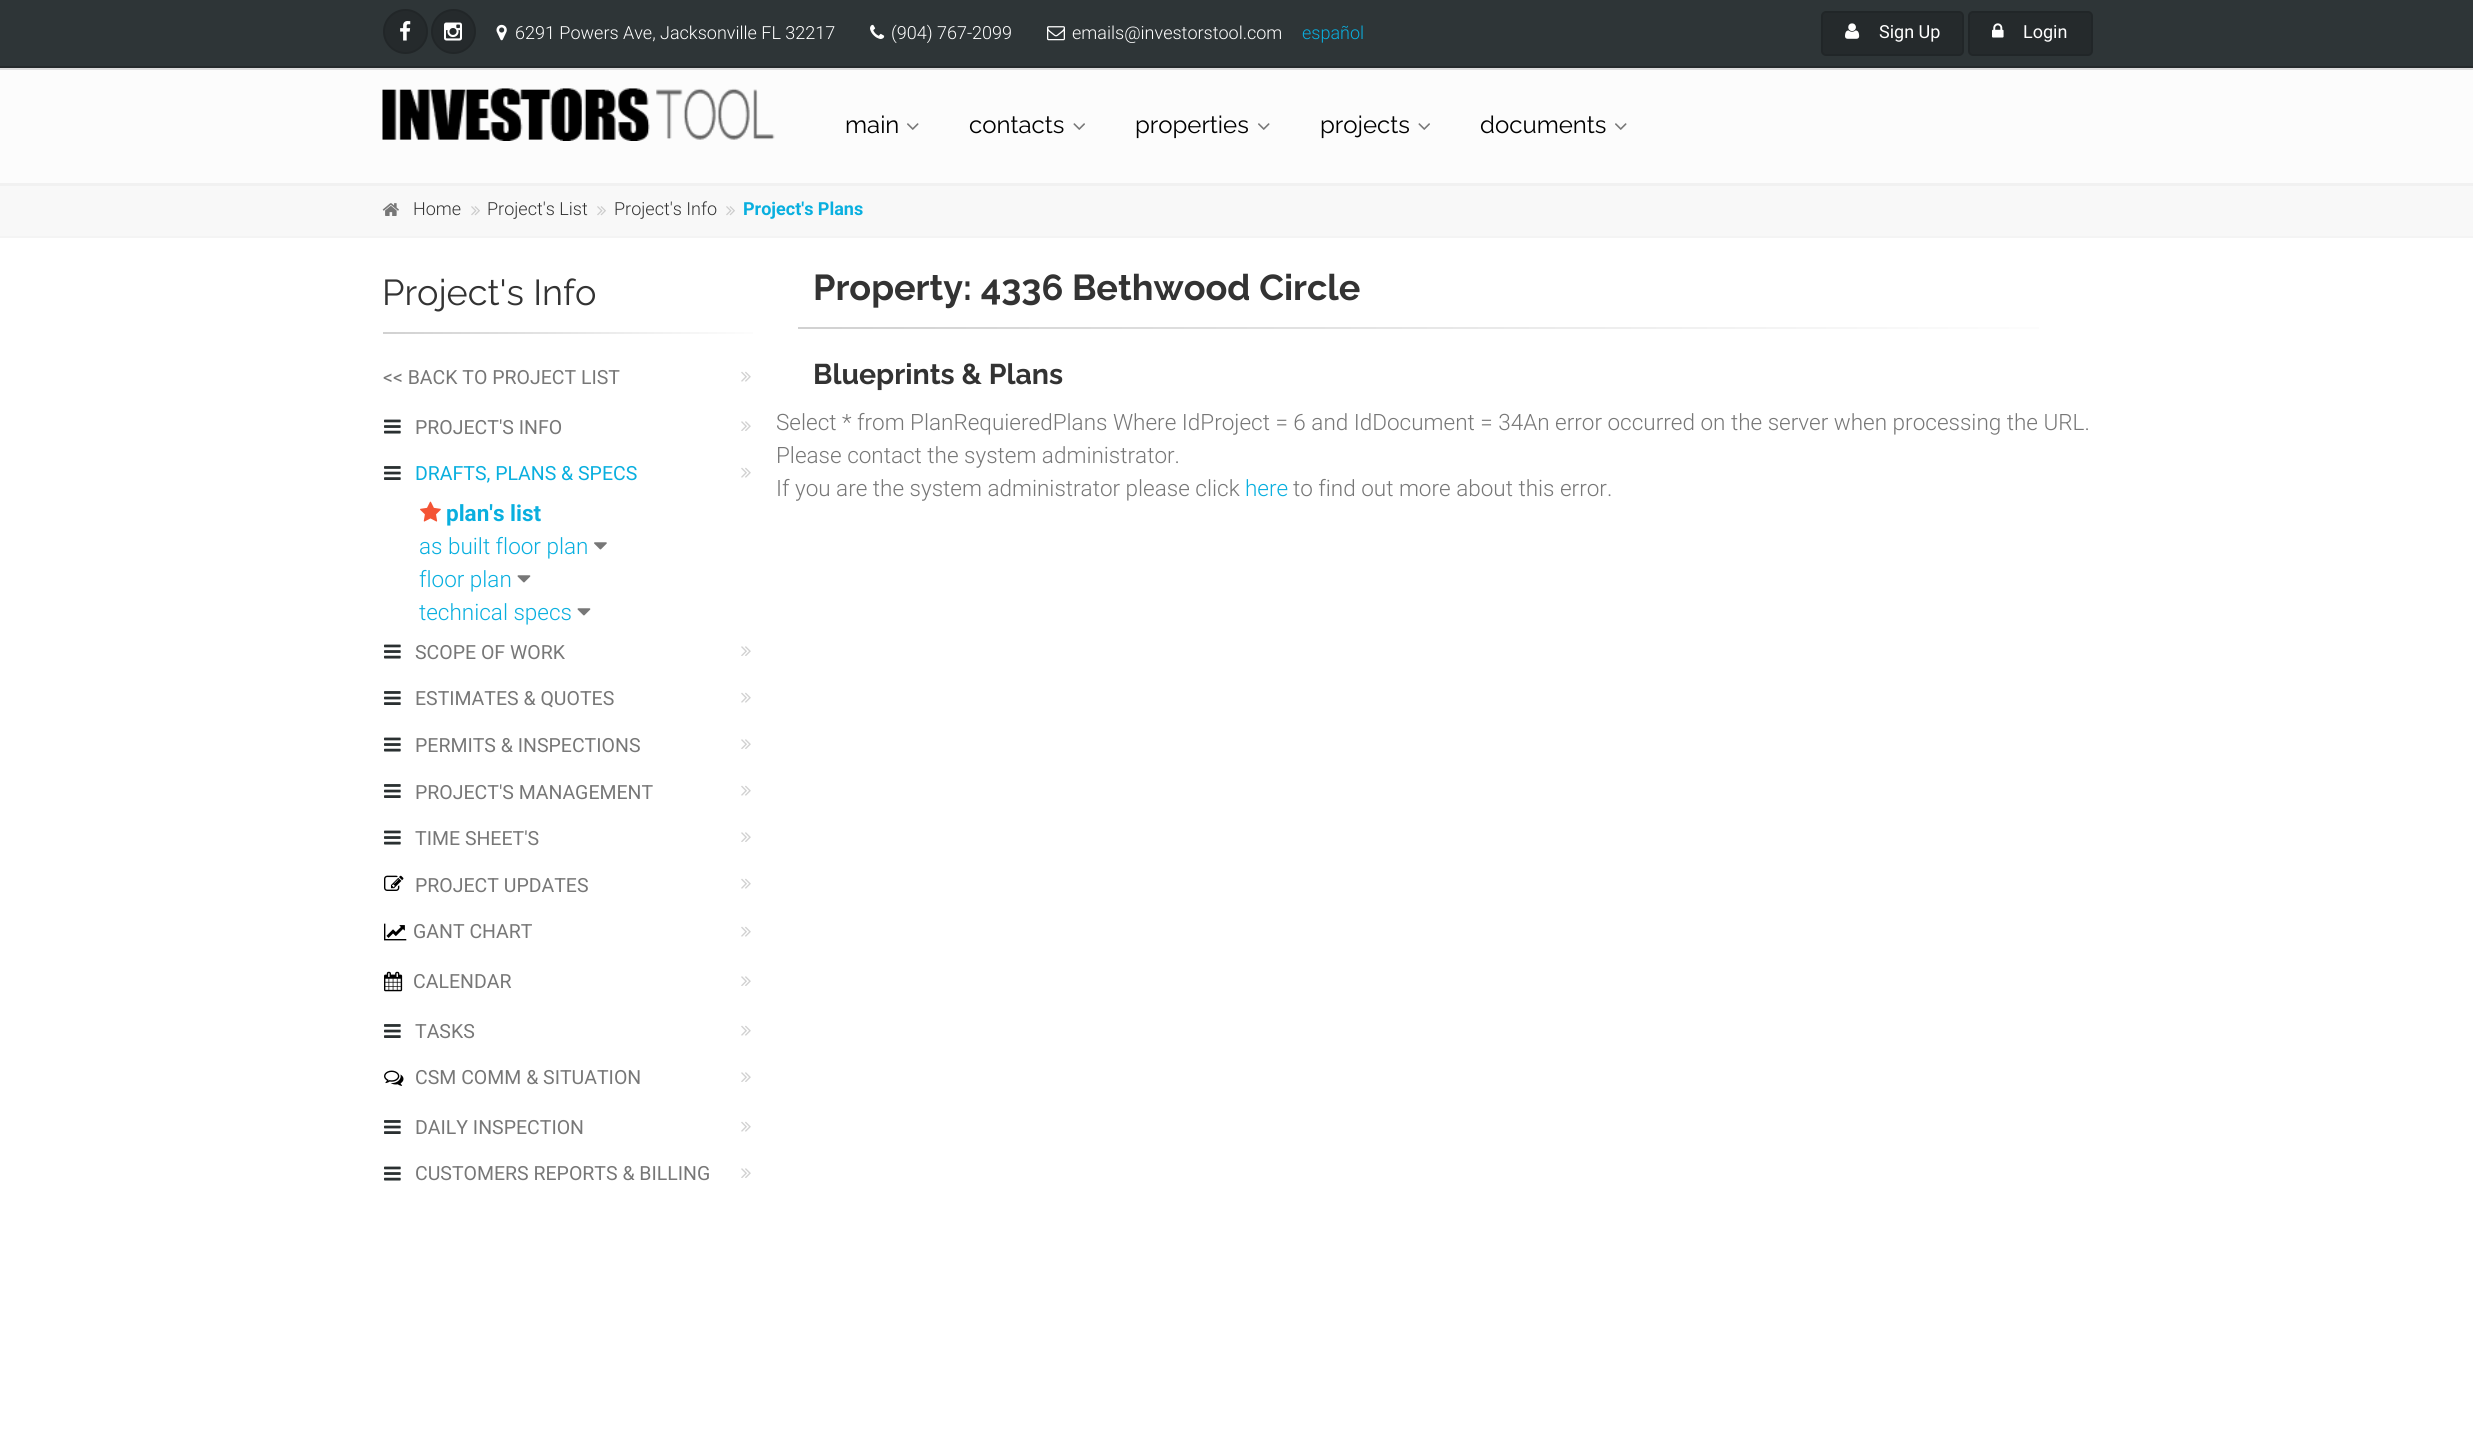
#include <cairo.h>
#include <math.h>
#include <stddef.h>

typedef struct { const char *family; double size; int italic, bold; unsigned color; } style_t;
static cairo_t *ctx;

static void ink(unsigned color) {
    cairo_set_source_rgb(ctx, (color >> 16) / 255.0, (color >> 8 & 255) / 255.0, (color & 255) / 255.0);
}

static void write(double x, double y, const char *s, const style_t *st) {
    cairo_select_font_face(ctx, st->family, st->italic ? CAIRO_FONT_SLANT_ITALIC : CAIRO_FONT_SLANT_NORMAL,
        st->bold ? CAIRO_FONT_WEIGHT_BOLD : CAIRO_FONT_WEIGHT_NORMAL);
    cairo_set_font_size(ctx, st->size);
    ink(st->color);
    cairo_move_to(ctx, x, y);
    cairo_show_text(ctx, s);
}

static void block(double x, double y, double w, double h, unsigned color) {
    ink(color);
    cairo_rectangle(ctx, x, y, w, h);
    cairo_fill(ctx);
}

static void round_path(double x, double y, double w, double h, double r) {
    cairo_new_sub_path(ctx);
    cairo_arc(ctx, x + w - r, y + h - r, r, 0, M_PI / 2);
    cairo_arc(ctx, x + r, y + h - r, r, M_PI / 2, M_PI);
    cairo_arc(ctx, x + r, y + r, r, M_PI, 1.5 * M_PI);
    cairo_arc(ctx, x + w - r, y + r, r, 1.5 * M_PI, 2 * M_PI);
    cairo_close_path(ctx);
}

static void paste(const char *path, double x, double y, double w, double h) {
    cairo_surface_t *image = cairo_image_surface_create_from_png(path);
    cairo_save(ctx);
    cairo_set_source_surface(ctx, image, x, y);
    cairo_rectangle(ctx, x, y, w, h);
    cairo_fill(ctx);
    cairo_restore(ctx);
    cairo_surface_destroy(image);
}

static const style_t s1 = {"Roboto Light", 18, 0, 0, 0xffffff};
static const style_t s2 = {"Roboto Light", 18, 0, 0, 0x09afdf};
static const style_t s3 = {"Roboto", 18, 0, 0, 0xffffff};
static const style_t s4 = {"Raleway", 24, 0, 0, 0x000000};
static const style_t s5 = {"Roboto Light", 18, 0, 0, 0x333333};
static const style_t s6 = {"Roboto", 18, 0, 1, 0x09afdf};
static const style_t s7 = {"Raleway", 36, 0, 0, 0x333333};
static const style_t s8 = {"Roboto", 19.5, 0, 0, 0x777777};
static const style_t s9 = {"Roboto", 19.5, 0, 0, 0x09afdf};
static const style_t s10 = {"Roboto", 22.5, 0, 1, 0x09afdf};
static const style_t s11 = {"Roboto Light", 22.5, 0, 0, 0x09afdf};
static const style_t s12 = {"Raleway", 36, 0, 1, 0x333333};
static const style_t s13 = {"Raleway", 28.5, 0, 1, 0x333333};
static const style_t s14 = {"Roboto Light", 22.5, 0, 0, 0x777777};

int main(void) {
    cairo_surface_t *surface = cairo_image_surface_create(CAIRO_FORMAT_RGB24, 2473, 1449);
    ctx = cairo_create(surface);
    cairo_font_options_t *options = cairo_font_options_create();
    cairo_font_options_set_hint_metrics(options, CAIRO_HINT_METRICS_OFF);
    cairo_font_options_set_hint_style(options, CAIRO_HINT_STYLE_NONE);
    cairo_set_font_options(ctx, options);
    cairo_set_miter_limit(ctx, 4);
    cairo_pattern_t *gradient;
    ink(0xffffff);
    cairo_paint(ctx);
    block(0, 0, 2473, 66, 0x2e3537);
    block(0, 66, 2473, 2, 0x252a2c);
    cairo_arc(ctx, 405.5, 31.5, 22.5, 0, 2 * M_PI);
    cairo_fill(ctx);
    cairo_arc(ctx, 405.5, 31.5, 21.5, 0, 2 * M_PI);
    cairo_set_source_rgba(ctx, 0, 0, 0, 0.1);
    cairo_stroke(ctx);
    paste("pic1.png", 400, 21, 11, 20);
    ink(0x252a2c);
    cairo_arc(ctx, 453.5, 31.5, 22.5, 0, 2 * M_PI);
    cairo_fill(ctx);
    cairo_arc(ctx, 453.5, 31.5, 21.5, 0, 2 * M_PI);
    cairo_set_source_rgba(ctx, 0, 0, 0, 0.1);
    cairo_stroke(ctx);
    paste("pic2.png", 444, 22, 18, 19);
    paste("pic3.png", 496, 24, 11, 17);
    write(515, 39, "6291 Powers Ave, Jacksonville FL 32217", &s1);
    paste("pic4.png", 870, 24, 15, 15);
    write(891, 39, "(904) 767-2099", &s1);
    paste("pic5.png", 1047, 26, 18, 15);
    write(1072, 39, "emails@investorstool.com", &s1);
    write(1302, 39, "español", &s2);
    ink(0x252a2c);
    round_path(1821, 11, 143, 45, 5);
    cairo_fill(ctx);
    round_path(1822, 12, 141, 43, 4);
    cairo_set_source_rgba(ctx, 0, 0, 0, 0.1);
    cairo_stroke(ctx);
    paste("pic6.png", 1845, 23, 15, 16);
    write(1879, 38, "Sign Up", &s3);
    ink(0x252a2c);
    round_path(1968, 11, 125, 45, 5);
    cairo_fill(ctx);
    round_path(1969, 12, 123, 43, 4);
    cairo_set_source_rgba(ctx, 0, 0, 0, 0.1);
    cairo_stroke(ctx);
    paste("pic7.png", 1992, 23, 12, 15);
    write(2023, 38, "Login", &s3);
    block(0, 70, 2473, 113, 0xfcfcfc);
    block(0, 68, 2473, 2, 0xdddddd);
    block(0, 183, 2473, 3, 0xf1f1f1);
    paste("pic8.png", 382, 88, 393, 53);
    write(845, 133, "main", &s4);
    paste("pic9.png", 907, 123, 12, 7);
    write(969, 133, "contacts", &s4);
    paste("pic10.png", 1073, 123, 12, 7);
    write(1135, 133, "properties", &s4);
    paste("pic9.png", 1258, 123, 12, 7);
    write(1320, 133, "projects", &s4);
    paste("pic10.png", 1418, 123, 12, 7);
    write(1480, 133, "documents", &s4);
    paste("pic9.png", 1615, 123, 12, 7);
    block(0, 186, 2473, 50, 0xf8f8f8);
    block(0, 236, 2473, 2, 0xf4f4f4);
    paste("pic11.png", 382, 203, 17, 13);
    write(413, 215, "Home", &s5);
    paste("pic12.png", 471, 206, 9, 10);
    write(487, 215, "Project's List", &s5);
    paste("pic12.png", 597, 206, 9, 10);
    write(614, 215, "Project's Info", &s5);
    paste("pic12.png", 726, 206, 9, 10);
    write(743, 215, "Project's Plans", &s6);
    write(382, 305, "Project's Info", &s7);
    gradient = cairo_pattern_create_linear(383, 332, 776, 332);
    cairo_pattern_add_color_stop_rgba(gradient, 0, 0.82, 0.82, 0.82, 1);
    cairo_pattern_add_color_stop_rgba(gradient, 0.35, 0.878, 0.878, 0.878, 1);
    cairo_pattern_add_color_stop_rgba(gradient, 0.7, 0.949, 0.949, 0.949, 1);
    cairo_pattern_add_color_stop_rgba(gradient, 1, 1, 1, 1, 1);
    cairo_set_source(ctx, gradient);
    cairo_pattern_destroy(gradient);
    cairo_rectangle(ctx, 383, 332, 370, 2);
    cairo_fill(ctx);
    write(383, 384, "<< BACK TO PROJECT LIST", &s8);
    paste("pic13.png", 741, 371, 10, 11);
    paste("pic14.png", 384, 419, 17, 15);
    write(415, 434, "PROJECT'S INFO", &s8);
    paste("pic15.png", 741, 421, 10, 10);
    paste("pic16.png", 384, 466, 17, 14);
    write(415, 480, "DRAFTS, PLANS & SPECS", &s9);
    paste("pic13.png", 741, 467, 10, 11);
    paste("pic17.png", 420, 501, 21, 21);
    write(446, 521, "plan's list", &s10);
    write(419, 554, "as built floor plan", &s11);
    paste("pic18.png", 594, 542, 13, 8);
    write(419, 587, "floor plan", &s11);
    paste("pic19.png", 517, 575, 14, 8);
    write(419, 620, "technical specs", &s11);
    paste("pic19.png", 577, 608, 14, 8);
    paste("pic14.png", 384, 644, 17, 15);
    write(415, 659, "SCOPE OF WORK", &s8);
    paste("pic15.png", 741, 646, 10, 10);
    paste("pic16.png", 384, 691, 17, 14);
    write(415, 705, "ESTIMATES & QUOTES", &s8);
    paste("pic13.png", 741, 692, 10, 11);
    paste("pic14.png", 384, 737, 17, 15);
    write(415, 752, "PERMITS & INSPECTIONS", &s8);
    paste("pic15.png", 741, 739, 10, 10);
    paste("pic16.png", 384, 784, 17, 14);
    write(415, 799, "PROJECT'S MANAGEMENT", &s8);
    paste("pic13.png", 741, 785, 10, 11);
    paste("pic14.png", 384, 830, 17, 15);
    write(415, 845, "TIME SHEET'S", &s8);
    paste("pic15.png", 741, 832, 10, 10);
    paste("pic20.png", 384, 875, 20, 16);
    write(415, 892, "PROJECT UPDATES", &s8);
    paste("pic13.png", 741, 878, 10, 11);
    paste("pic21.png", 384, 923, 23, 18);
    write(413, 938, "GANT CHART", &s8);
    paste("pic13.png", 741, 926, 10, 11);
    paste("pic22.png", 384, 971, 19, 21);
    write(413, 988, "CALENDAR", &s8);
    paste("pic15.png", 741, 976, 10, 10);
    paste("pic16.png", 384, 1024, 17, 14);
    write(415, 1038, "TASKS", &s8);
    paste("pic13.png", 741, 1025, 10, 11);
    paste("pic23.png", 384, 1070, 20, 16);
    write(415, 1084, "CSM COMM & SITUATION", &s8);
    paste("pic15.png", 741, 1072, 10, 10);
    paste("pic16.png", 384, 1120, 17, 14);
    write(415, 1134, "DAILY INSPECTION", &s8);
    paste("pic13.png", 741, 1121, 10, 11);
    paste("pic14.png", 384, 1166, 17, 15);
    write(415, 1180, "CUSTOMERS REPORTS & BILLING", &s8);
    paste("pic15.png", 741, 1168, 10, 10);
    write(813, 300, "Property: 4336 Bethwood Circle", &s12);
    gradient = cairo_pattern_create_linear(798, 328, 2115, 328);
    cairo_pattern_add_color_stop_rgba(gradient, 0, 0.82, 0.82, 0.82, 1);
    cairo_pattern_add_color_stop_rgba(gradient, 0.35, 0.878, 0.878, 0.878, 1);
    cairo_pattern_add_color_stop_rgba(gradient, 0.7, 0.949, 0.949, 0.949, 1);
    cairo_pattern_add_color_stop_rgba(gradient, 1, 1, 1, 1, 1);
    cairo_set_source(ctx, gradient);
    cairo_pattern_destroy(gradient);
    cairo_rectangle(ctx, 798, 327, 1241, 2);
    cairo_fill(ctx);
    write(813, 384, "Blueprints & Plans", &s13);
    write(776, 430, "Select * from PlanRequieredPlans Where IdProject = 6 and IdDocument = 34An error occurred on the server when processing the URL.", &s14);
    write(776, 463, "Please contact the system administrator.", &s14);
    write(776, 496, "If you are the system administrator please click", &s14);
    write(1245, 496, "here", &s11);
    write(1293, 496, "to find out more about this error.", &s14);
    cairo_surface_write_to_png(surface, "screenshot.png");
    cairo_font_options_destroy(options);
    cairo_destroy(ctx);
    cairo_surface_destroy(surface);
    return 0;
}
